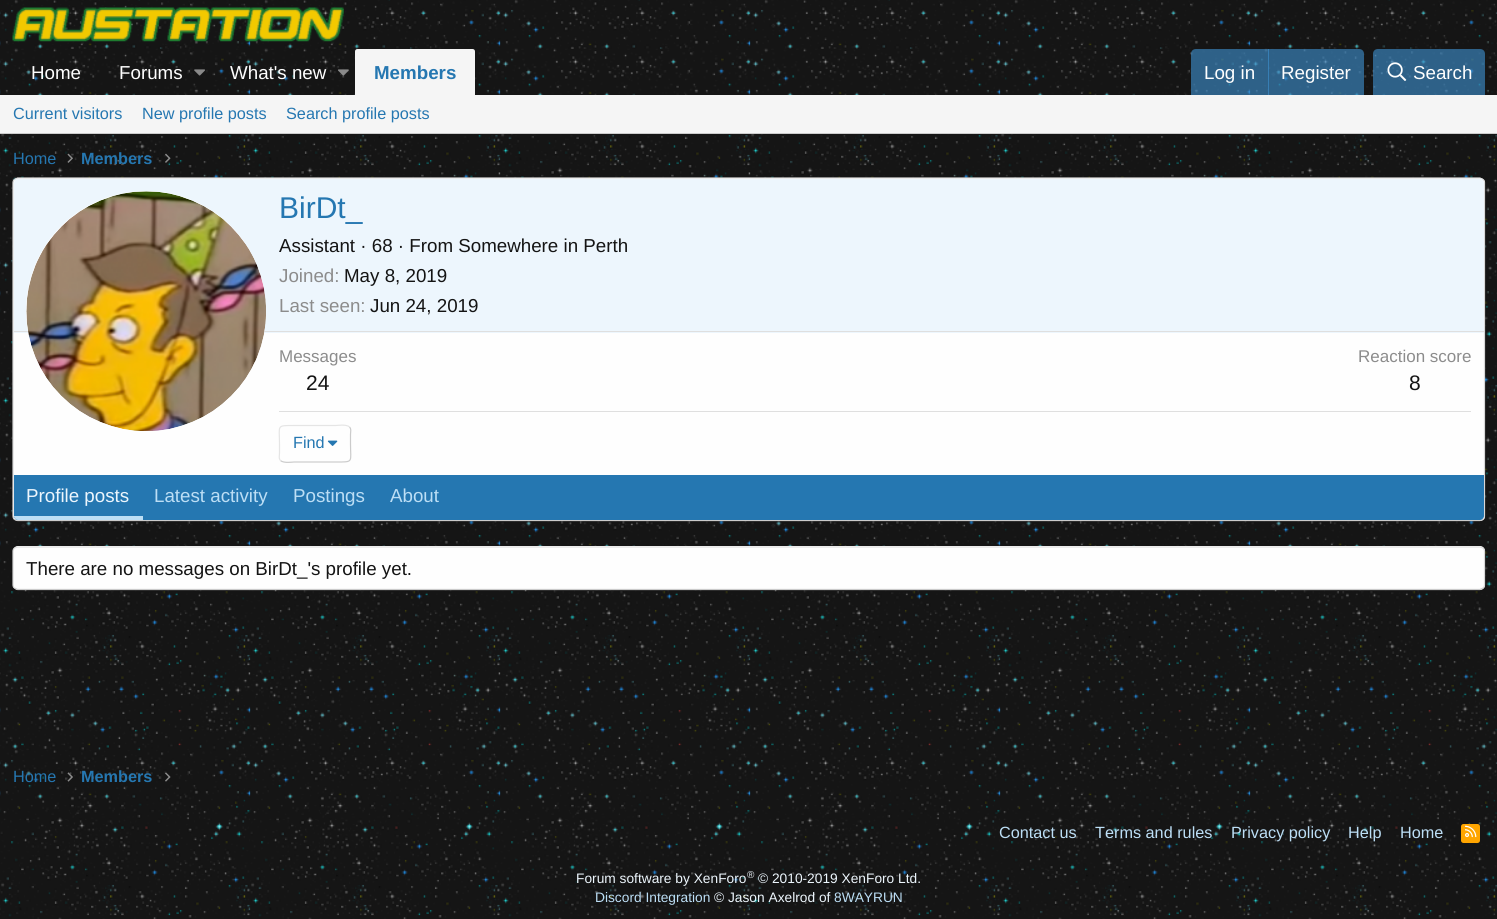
#include <cairo.h>
#include <math.h>
#include <stddef.h>

typedef struct { const char *family; double size; int italic, bold; unsigned color; } style_t;
static cairo_t *ctx;

static void ink(unsigned color) {
    cairo_set_source_rgb(ctx, (color >> 16) / 255.0, (color >> 8 & 255) / 255.0, (color & 255) / 255.0);
}

static void write(double x, double y, const char *s, const style_t *st) {
    cairo_select_font_face(ctx, st->family, st->italic ? CAIRO_FONT_SLANT_ITALIC : CAIRO_FONT_SLANT_NORMAL,
        st->bold ? CAIRO_FONT_WEIGHT_BOLD : CAIRO_FONT_WEIGHT_NORMAL);
    cairo_set_font_size(ctx, st->size);
    ink(st->color);
    cairo_move_to(ctx, x, y);
    cairo_show_text(ctx, s);
}

static void block(double x, double y, double w, double h, unsigned color) {
    ink(color);
    cairo_rectangle(ctx, x, y, w, h);
    cairo_fill(ctx);
}

static void round_path(double x, double y, double w, double h, double r) {
    cairo_new_sub_path(ctx);
    cairo_arc(ctx, x + w - r, y + h - r, r, 0, M_PI / 2);
    cairo_arc(ctx, x + r, y + h - r, r, M_PI / 2, M_PI);
    cairo_arc(ctx, x + r, y + r, r, M_PI, 1.5 * M_PI);
    cairo_arc(ctx, x + w - r, y + r, r, 1.5 * M_PI, 2 * M_PI);
    cairo_close_path(ctx);
}

static void paste(const char *path, double x, double y, double w, double h) {
    cairo_surface_t *image = cairo_image_surface_create_from_png(path);
    cairo_save(ctx);
    cairo_set_source_surface(ctx, image, x, y);
    cairo_rectangle(ctx, x, y, w, h);
    cairo_fill(ctx);
    cairo_restore(ctx);
    cairo_surface_destroy(image);
}

static const style_t s1 = {"Liberation Sans", 18.75, 0, 0, 0xfefefe};
static const style_t s2 = {"Liberation Sans", 18.75, 0, 1, 0x2577b1};
static const style_t s3 = {"Liberation Sans", 16.25, 0, 0, 0x2577b1};
static const style_t s4 = {"Liberation Sans", 16.25, 0, 1, 0x2577b1};
static const style_t s5 = {"Liberation Sans", 30, 0, 0, 0x2577b1};
static const style_t s6 = {"Liberation Sans", 18.75, 0, 0, 0x141414};
static const style_t s7 = {"Liberation Sans", 18.75, 0, 0, 0x8c8c8c};
static const style_t s8 = {"Liberation Sans", 17, 0, 0, 0x8c8c8c};
static const style_t s9 = {"Liberation Sans", 21, 0, 0, 0x141414};
static const style_t s10 = {"Liberation Sans", 18.75, 0, 0, 0xedf6fd};
static const style_t s11 = {"Liberation Sans", 18.75, 0, 0, 0xbcdef5};
static const style_t s12 = {"Liberation Sans", 16.25, 0, 0, 0xbcdef5};
static const style_t s13 = {"Liberation Sans", 13.75, 0, 0, 0xedf6fd};
static const style_t s14 = {"Liberation Sans", 10, 0, 0, 0xedf6fd};
static const style_t s15 = {"Liberation Sans", 13.75, 0, 0, 0xbcdef5};

int main(void) {
    cairo_surface_t *surface = cairo_image_surface_create(CAIRO_FORMAT_RGB24, 1497, 919);
    ctx = cairo_create(surface);
    cairo_font_options_t *options = cairo_font_options_create();
    cairo_font_options_set_hint_metrics(options, CAIRO_HINT_METRICS_OFF);
    cairo_font_options_set_hint_style(options, CAIRO_HINT_STYLE_NONE);
    cairo_set_font_options(ctx, options);
    cairo_set_miter_limit(ctx, 4);
    ink(0xffffff);
    cairo_paint(ctx);
    paste("pic1.png", 0, 0, 1497, 919);
    paste("pic2.png", 12, 7, 332, 35);
    paste("pic3.png", 0, 48, 1497, 47);
    write(31, 79, "Home", &s1);
    write(119, 79, "Forums", &s1);
    paste("pic4.png", 194, 69, 11, 7);
    write(230, 79, "What's new", &s1);
    paste("pic5.png", 338, 69, 11, 7);
    ink(0xf5f5f5);
    cairo_new_path(ctx);
    cairo_move_to(ctx, 357.5, 49);
    cairo_line_to(ctx, 472.5, 49);
    cairo_curve_to(ctx, 474, 49, 475, 50, 475, 51.5);
    cairo_line_to(ctx, 475, 95);
    cairo_line_to(ctx, 355, 95);
    cairo_line_to(ctx, 355, 51.5);
    cairo_curve_to(ctx, 355, 50, 356, 49, 357.5, 49);
    cairo_close_path(ctx);
    cairo_fill(ctx);
    write(374, 79, "Members", &s2);
    cairo_set_source_rgba(ctx, 0.243, 0.565, 0.812, 0.62);
    cairo_new_path(ctx);
    cairo_move_to(ctx, 1196, 49);
    cairo_line_to(ctx, 1359, 49);
    cairo_curve_to(ctx, 1362, 49, 1364, 51, 1364, 54);
    cairo_line_to(ctx, 1364, 95);
    cairo_line_to(ctx, 1191, 95);
    cairo_line_to(ctx, 1191, 54);
    cairo_curve_to(ctx, 1191, 51, 1193, 49, 1196, 49);
    cairo_close_path(ctx);
    cairo_fill(ctx);
    write(1204, 79, "Log in", &s1);
    cairo_set_source_rgba(ctx, 0.243, 0.565, 0.812, 0.62);
    cairo_rectangle(ctx, 1268, 49, 1, 46);
    cairo_fill(ctx);
    write(1281, 79, "Register", &s1);
    cairo_set_source_rgba(ctx, 0.243, 0.565, 0.812, 0.62);
    cairo_new_path(ctx);
    cairo_move_to(ctx, 1378, 49);
    cairo_line_to(ctx, 1480, 49);
    cairo_curve_to(ctx, 1483, 49, 1485, 51, 1485, 54);
    cairo_line_to(ctx, 1485, 95);
    cairo_line_to(ctx, 1373, 95);
    cairo_line_to(ctx, 1373, 54);
    cairo_curve_to(ctx, 1373, 51, 1375, 49, 1378, 49);
    cairo_close_path(ctx);
    cairo_fill(ctx);
    paste("pic6.png", 1387, 62, 20, 19);
    write(1413, 79, "Search", &s1);
    block(0, 95, 1497, 38, 0xf5f5f5);
    block(0, 133, 1497, 1, 0xcbcbcb);
    write(13, 119, "Current visitors", &s3);
    write(142, 119, "New profile posts", &s3);
    write(286, 119, "Search profile posts", &s3);
    write(13, 164, "Home", &s3);
    paste("pic7.png", 67, 153, 6, 10);
    write(81, 164, "Members", &s4);
    paste("pic8.png", 165, 153, 6, 10);
    ink(0xfefefe);
    round_path(13, 178, 1472, 343, 5);
    cairo_fill(ctx);
    cairo_new_path(ctx);
    cairo_move_to(ctx, 14.5, 179.5);
    cairo_line_to(ctx, 17.5, 178);
    cairo_line_to(ctx, 1480, 178);
    cairo_line_to(ctx, 1483, 179.5);
    ink(0xdfdfdf);
    cairo_set_line_width(ctx, 1.2);
    cairo_stroke(ctx);
    cairo_new_path(ctx);
    cairo_move_to(ctx, 1483, 179.5);
    cairo_curve_to(ctx, 1484, 180, 1484.5, 181.5, 1484.5, 182.5);
    cairo_line_to(ctx, 1484.5, 516);
    cairo_curve_to(ctx, 1484.5, 517.5, 1484, 518.5, 1483, 519.5);
    ink(0xd8d8d8);
    cairo_stroke(ctx);
    cairo_new_path(ctx);
    cairo_move_to(ctx, 1483, 519.5);
    cairo_line_to(ctx, 1480, 520.5);
    cairo_line_to(ctx, 17.5, 520.5);
    cairo_line_to(ctx, 14.5, 519.5);
    ink(0xcbcbcb);
    cairo_stroke(ctx);
    cairo_new_path(ctx);
    cairo_move_to(ctx, 14.5, 519.5);
    cairo_curve_to(ctx, 13.5, 518.5, 13, 517.5, 13, 516);
    cairo_line_to(ctx, 13, 182.5);
    cairo_curve_to(ctx, 13, 181.5, 13.5, 180, 14.5, 179.5);
    ink(0xd8d8d8);
    cairo_stroke(ctx);
    ink(0xedf6fd);
    cairo_new_path(ctx);
    cairo_move_to(ctx, 18, 179);
    cairo_line_to(ctx, 1480, 179);
    cairo_curve_to(ctx, 1482, 179, 1484, 181, 1484, 183);
    cairo_line_to(ctx, 1484, 333);
    cairo_line_to(ctx, 14, 333);
    cairo_line_to(ctx, 14, 183);
    cairo_curve_to(ctx, 14, 181, 16, 179, 18, 179);
    cairo_close_path(ctx);
    cairo_fill(ctx);
    block(14, 331, 1470, 1, 0xdfdfdf);
    ink(0xfefefe);
    cairo_arc(ctx, 146, 311, 120, 0, 2 * M_PI);
    cairo_fill(ctx);
    paste("pic9.png", 26, 191, 240, 240);
    write(279, 218, "BirDt_", &s5);
    write(279, 252, "Assistant · 68 · From Somewhere in Perth", &s6);
    write(279, 282, "Joined:", &s7);
    write(344, 282, "May 8, 2019", &s6);
    write(279, 312, "Last seen:", &s7);
    write(370, 312, "Jun 24, 2019", &s6);
    write(279, 362, "Messages", &s8);
    write(306, 390, "24", &s9);
    write(1358, 362, "Reaction score", &s8);
    write(1409, 390, "8", &s9);
    block(279, 411, 1192, 1, 0xdfdfdf);
    cairo_new_path(ctx);
    cairo_move_to(ctx, 349.5, 427);
    cairo_curve_to(ctx, 351.5, 429, 350.5, 432, 350.5, 434.5);
    cairo_line_to(ctx, 350.5, 444);
    cairo_curve_to(ctx, 350.5, 462.5, 354, 462, 336, 462);
    cairo_line_to(ctx, 294, 462);
    cairo_curve_to(ctx, 293, 462, 283.5, 463.5, 280.5, 460.5);
    ink(0xcbcbcb);
    cairo_stroke(ctx);
    cairo_new_path(ctx);
    cairo_move_to(ctx, 280.5, 460.5);
    cairo_curve_to(ctx, 278.5, 458.5, 279.5, 455.5, 279.5, 453);
    cairo_line_to(ctx, 279.5, 444);
    cairo_curve_to(ctx, 279.5, 425, 276, 425.5, 294, 425.5);
    cairo_line_to(ctx, 336, 425.5);
    cairo_curve_to(ctx, 337, 425.5, 346.5, 424, 349.5, 427);
    ink(0xe5e5e5);
    cairo_stroke(ctx);
    write(293, 448, "Find", &s3);
    paste("pic10.png", 327, 440, 11, 6);
    cairo_new_path(ctx);
    cairo_move_to(ctx, 14, 475);
    cairo_line_to(ctx, 1484, 475);
    cairo_line_to(ctx, 1484, 516);
    cairo_curve_to(ctx, 1484, 518, 1482, 520, 1480, 520);
    cairo_line_to(ctx, 18, 520);
    cairo_curve_to(ctx, 16, 520, 14, 518, 14, 516);
    cairo_close_path(ctx);
    cairo_fill(ctx);
    ink(0xbcdef5);
    cairo_new_path(ctx);
    cairo_move_to(ctx, 14, 516);
    cairo_line_to(ctx, 143, 516);
    cairo_line_to(ctx, 143, 520);
    cairo_line_to(ctx, 18, 520);
    cairo_curve_to(ctx, 16, 520, 14, 518, 14, 516);
    cairo_close_path(ctx);
    cairo_fill(ctx);
    write(26, 502, "Profile posts", &s10);
    write(154, 502, "Latest activity", &s11);
    write(293, 502, "Postings", &s11);
    write(390, 502, "About", &s11);
    ink(0xfefefe);
    round_path(13, 546, 1472, 44, 5);
    cairo_fill(ctx);
    cairo_new_path(ctx);
    cairo_move_to(ctx, 14.5, 548);
    cairo_line_to(ctx, 17.5, 547);
    cairo_line_to(ctx, 1480, 547);
    cairo_line_to(ctx, 1483, 548);
    ink(0xdfdfdf);
    cairo_stroke(ctx);
    cairo_new_path(ctx);
    cairo_move_to(ctx, 1483, 548);
    cairo_curve_to(ctx, 1484, 549, 1484.5, 550, 1484.5, 551);
    cairo_line_to(ctx, 1484.5, 585);
    cairo_curve_to(ctx, 1484.5, 586, 1484, 587.5, 1483, 588);
    ink(0xd8d8d8);
    cairo_stroke(ctx);
    cairo_new_path(ctx);
    cairo_move_to(ctx, 1483, 588);
    cairo_line_to(ctx, 1480, 589.5);
    cairo_line_to(ctx, 17.5, 589.5);
    cairo_line_to(ctx, 14.5, 588);
    ink(0xcbcbcb);
    cairo_stroke(ctx);
    cairo_new_path(ctx);
    cairo_move_to(ctx, 14.5, 588);
    cairo_curve_to(ctx, 13.5, 587.5, 13, 586, 13, 585);
    cairo_line_to(ctx, 13, 551);
    cairo_curve_to(ctx, 13, 550, 13.5, 549, 14.5, 548);
    ink(0xd8d8d8);
    cairo_stroke(ctx);
    write(26, 575, "There are no messages on BirDt_'s profile yet.", &s6);
    write(13, 782, "Home", &s3);
    paste("pic11.png", 67, 772, 6, 10);
    write(81, 782, "Members", &s4);
    paste("pic12.png", 165, 772, 6, 10);
    write(999, 838, "Contact us", &s12);
    write(1095, 838, "Terms and rules", &s12);
    write(1231, 838, "Privacy policy", &s12);
    write(1348, 838, "Help", &s12);
    write(1400, 838, "Home", &s12);
    ink(0xffa500);
    round_path(1461, 824, 19, 19, 2.5);
    cairo_fill(ctx);
    paste("pic13.png", 1465, 825, 12, 13);
    write(576, 883, "Forum software by XenForo", &s13);
    write(747, 878, "®", &s14);
    write(758, 883, "© 2010-2019 XenForo Ltd.", &s13);
    write(595, 902, "Discord Integration", &s15);
    write(714, 902, "© Jason Axelrod of", &s13);
    write(834, 902, "8WAYRUN", &s15);
    cairo_surface_write_to_png(surface, "screenshot.png");
    cairo_font_options_destroy(options);
    cairo_destroy(ctx);
    cairo_surface_destroy(surface);
    return 0;
}
